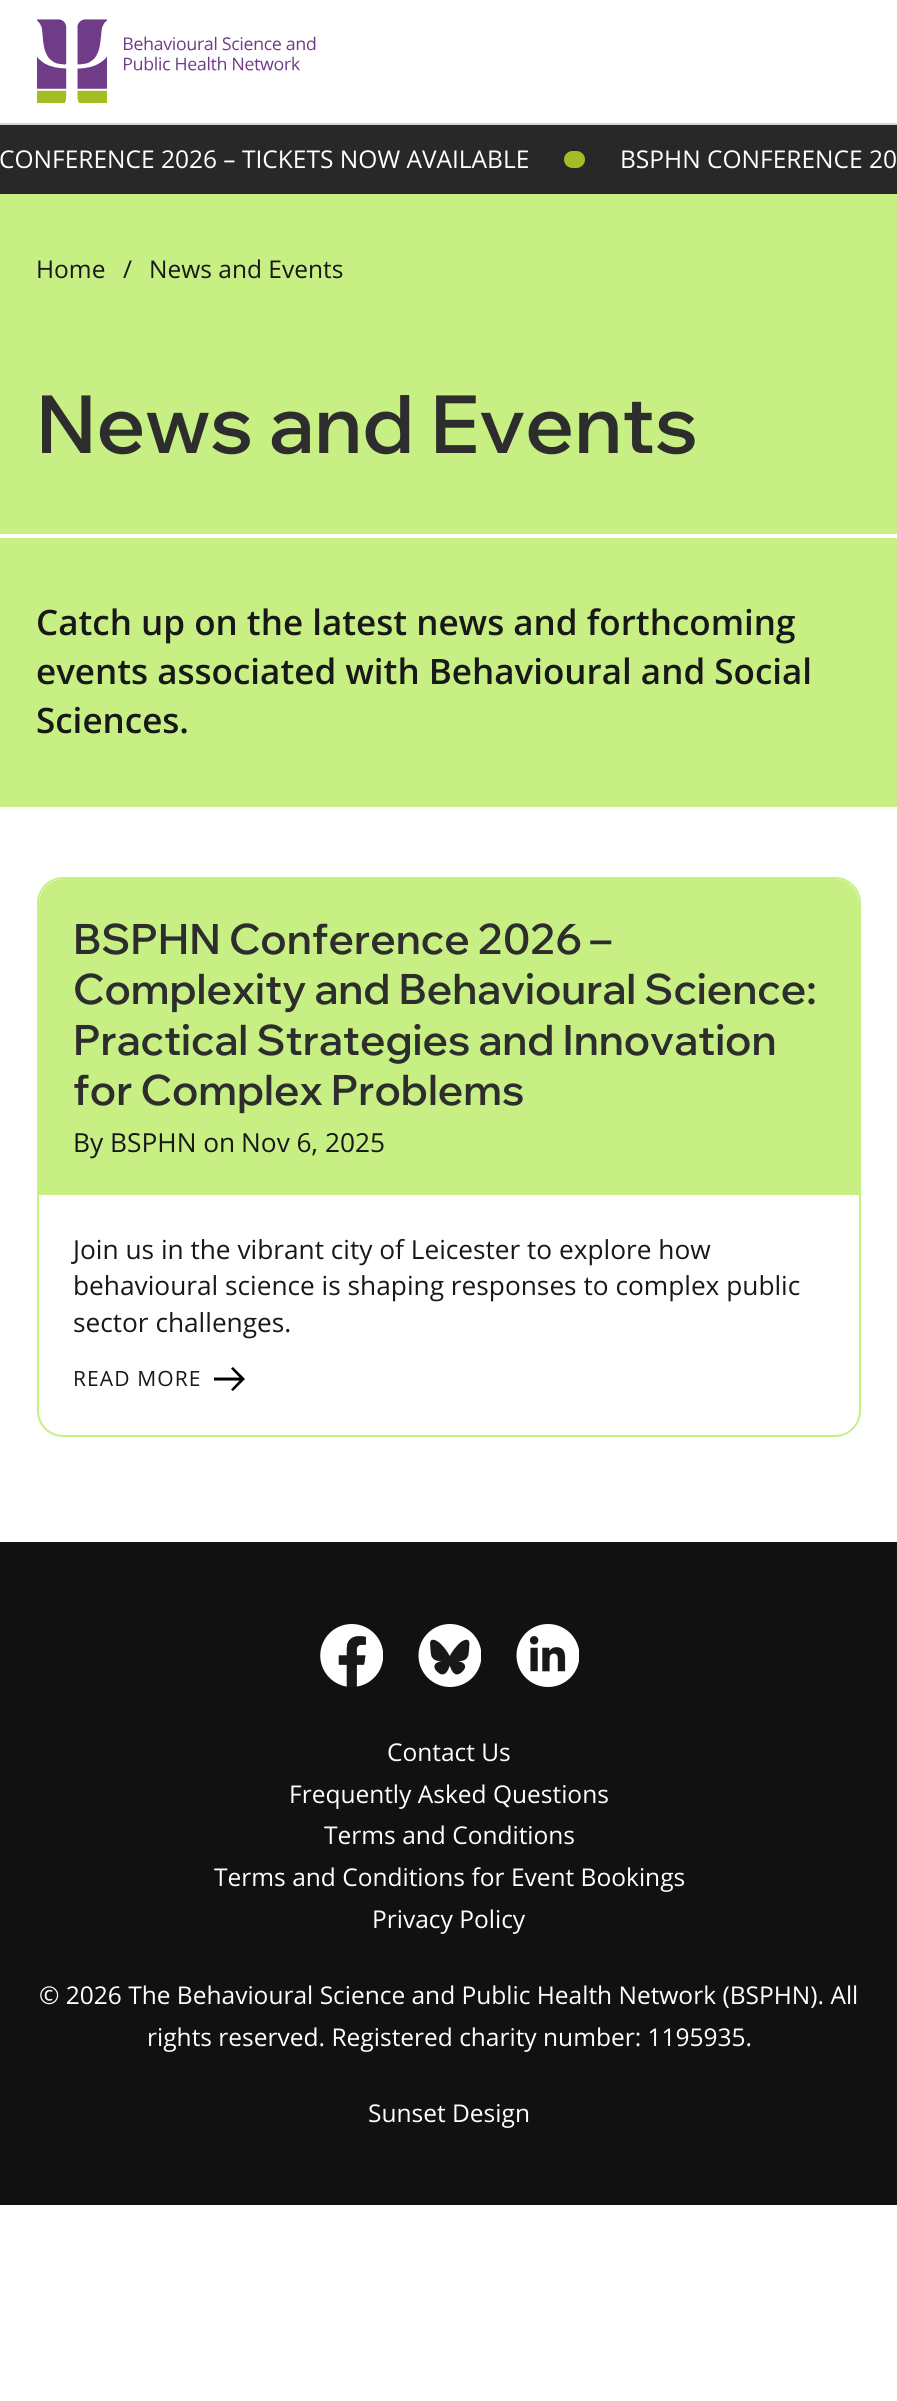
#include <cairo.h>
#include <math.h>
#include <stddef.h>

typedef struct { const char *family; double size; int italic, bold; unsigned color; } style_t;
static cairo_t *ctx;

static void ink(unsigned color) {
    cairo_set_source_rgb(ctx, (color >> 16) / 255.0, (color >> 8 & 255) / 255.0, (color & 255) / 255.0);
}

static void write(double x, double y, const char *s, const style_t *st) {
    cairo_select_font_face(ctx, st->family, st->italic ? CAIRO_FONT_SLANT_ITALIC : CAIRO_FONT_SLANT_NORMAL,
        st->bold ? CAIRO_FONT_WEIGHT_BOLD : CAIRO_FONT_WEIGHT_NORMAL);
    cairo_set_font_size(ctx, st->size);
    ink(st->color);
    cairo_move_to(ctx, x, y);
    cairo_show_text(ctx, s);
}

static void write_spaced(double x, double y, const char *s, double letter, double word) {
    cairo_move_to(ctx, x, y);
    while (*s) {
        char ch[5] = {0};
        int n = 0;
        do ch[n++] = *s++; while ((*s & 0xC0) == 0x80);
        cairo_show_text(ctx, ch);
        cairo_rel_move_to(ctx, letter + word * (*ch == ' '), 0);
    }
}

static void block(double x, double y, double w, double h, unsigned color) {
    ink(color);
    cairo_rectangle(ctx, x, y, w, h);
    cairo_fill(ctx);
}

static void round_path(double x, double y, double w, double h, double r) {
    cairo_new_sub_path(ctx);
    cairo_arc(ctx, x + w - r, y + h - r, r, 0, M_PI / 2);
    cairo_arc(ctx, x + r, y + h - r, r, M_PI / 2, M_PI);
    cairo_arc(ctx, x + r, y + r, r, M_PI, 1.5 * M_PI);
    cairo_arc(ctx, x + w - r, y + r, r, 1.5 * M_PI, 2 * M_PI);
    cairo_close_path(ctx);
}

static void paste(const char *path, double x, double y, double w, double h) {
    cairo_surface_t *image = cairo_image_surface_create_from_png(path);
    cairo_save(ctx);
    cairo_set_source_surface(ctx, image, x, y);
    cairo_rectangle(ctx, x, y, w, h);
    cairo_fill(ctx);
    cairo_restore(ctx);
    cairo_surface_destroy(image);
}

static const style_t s1 = {"Open Sans", 24.5, 0, 0, 0xffffff};
static const style_t s2 = {"Open Sans", 24.5, 0, 0, 0x181818};
static const style_t s3 = {"Wix Madefor Display SemiBold", 80.5, 0, 0, 0x2d2d2d};
static const style_t s4 = {"Open Sans SemiBold", 35, 0, 0, 0x181818};
static const style_t s5 = {"Wix Madefor Display SemiBold", 42, 0, 0, 0x2d2d2d};
static const style_t s6 = {"Open Sans", 26.25, 0, 0, 0x181818};

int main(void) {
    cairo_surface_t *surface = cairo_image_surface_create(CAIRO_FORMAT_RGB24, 897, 2401);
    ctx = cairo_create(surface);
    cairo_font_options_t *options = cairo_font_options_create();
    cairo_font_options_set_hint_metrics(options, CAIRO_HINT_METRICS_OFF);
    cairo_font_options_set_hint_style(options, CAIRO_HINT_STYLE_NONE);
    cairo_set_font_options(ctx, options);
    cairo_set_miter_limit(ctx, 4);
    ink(0xffffff);
    cairo_paint(ctx);
    block(0, 123, 897, 2, 0xd5d5d5);
    paste("pic1.png", 37, 19, 279, 84);
    block(0, 125, 897, 69, 0x282828);
    write(-1, 168, "CONFERENCE 2026 – TICKETS NOW AVAILABLE", &s1);
    ink(0xa4bd25);
    round_path(564, 151, 21, 17, 8.5);
    cairo_fill(ctx);
    write(620, 168, "BSPHN CONFERENCE 20", &s1);
    block(0, 194, 897, 613, 0xc7ef84);
    write(36, 278, "Home", &s2);
    write(123, 278, "/", &s2);
    write(149, 278, "News and Events", &s2);
    write(36, 453, "News and Events", &s3);
    block(0, 534, 897, 4, 0xffffff);
    write(36, 635, "Catch up on the latest news and forthcoming", &s4);
    write(36, 684, "events associated with Behavioural and Social", &s4);
    write(36, 733, "Sciences.", &s4);
    round_path(38, 878, 822, 558, 25);
    ink(0xc7ef84);
    cairo_stroke(ctx);
    cairo_new_path(ctx);
    cairo_move_to(ctx, 64, 879);
    cairo_line_to(ctx, 834, 879);
    cairo_curve_to(ctx, 848, 879, 859, 890, 859, 904);
    cairo_line_to(ctx, 859, 1195);
    cairo_line_to(ctx, 39, 1195);
    cairo_line_to(ctx, 39, 904);
    cairo_curve_to(ctx, 39, 890, 50, 879, 64, 879);
    cairo_close_path(ctx);
    cairo_fill(ctx);
    write(73, 954, "BSPHN Conference 2026 –", &s5);
    write(73, 1004, "Complexity and Behavioural Science:", &s5);
    write(73, 1055, "Practical Strategies and Innovation", &s5);
    write(73, 1105, "for Complex Problems", &s5);
    write(73, 1152, "By BSPHN on", &s6);
    write(241, 1152, "Nov 6, 2025", &s6);
    write(73, 1259, "Join us in the vibrant city of Leicester to explore how", &s6);
    write(73, 1295, "behavioural science is shaping responses to complex public", &s6);
    write(73, 1332, "sector challenges.", &s6);
    cairo_save(ctx);
    cairo_rectangle(ctx, 214, 1367, 31, 24);
    cairo_clip(ctx);
    ink(0x000000);
    cairo_new_path(ctx);
    cairo_move_to(ctx, 233, 1367);
    cairo_line_to(ctx, 231, 1368.5);
    cairo_line_to(ctx, 239.5, 1377.5);
    cairo_line_to(ctx, 213.5, 1377.5);
    cairo_line_to(ctx, 213.5, 1380.5);
    cairo_line_to(ctx, 239.5, 1380.5);
    cairo_line_to(ctx, 231, 1389.5);
    cairo_line_to(ctx, 233, 1391);
    cairo_line_to(ctx, 245, 1379);
    cairo_close_path(ctx);
    cairo_fill(ctx);
    cairo_restore(ctx);
    cairo_set_font_size(ctx, 21);
    write_spaced(73, 1386, "READ MORE", 1.1, 0);
    block(0, 1542, 897, 663, 0x111111);
    paste("pic2.png", 320, 1624, 63, 63);
    paste("pic3.png", 418, 1624, 63, 63);
    paste("pic4.png", 516, 1624, 63, 63);
    write(387, 1761, "Contact Us", &s1);
    write(289, 1803, "Frequently Asked Questions", &s1);
    write(324, 1844, "Terms and Conditions", &s1);
    write(214, 1886, "Terms and Conditions for Event Bookings", &s1);
    write(372, 1928, "Privacy Policy", &s1);
    write(39, 2004, "© 2026 The Behavioural Science and Public Health Network (BSPHN). All", &s1);
    write(147, 2046, "rights reserved. Registered charity number: 1195935.", &s1);
    write(368, 2122, "Sunset Design", &s1);
    cairo_surface_write_to_png(surface, "screenshot.png");
    cairo_font_options_destroy(options);
    cairo_destroy(ctx);
    cairo_surface_destroy(surface);
    return 0;
}
